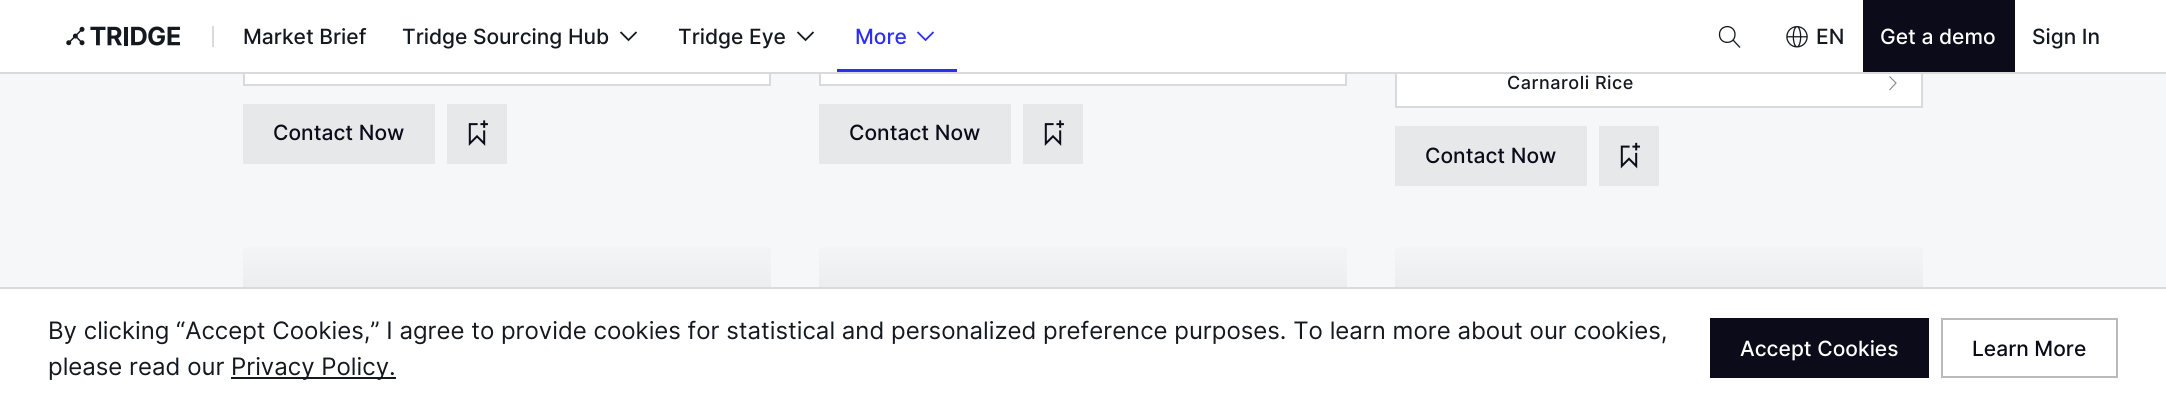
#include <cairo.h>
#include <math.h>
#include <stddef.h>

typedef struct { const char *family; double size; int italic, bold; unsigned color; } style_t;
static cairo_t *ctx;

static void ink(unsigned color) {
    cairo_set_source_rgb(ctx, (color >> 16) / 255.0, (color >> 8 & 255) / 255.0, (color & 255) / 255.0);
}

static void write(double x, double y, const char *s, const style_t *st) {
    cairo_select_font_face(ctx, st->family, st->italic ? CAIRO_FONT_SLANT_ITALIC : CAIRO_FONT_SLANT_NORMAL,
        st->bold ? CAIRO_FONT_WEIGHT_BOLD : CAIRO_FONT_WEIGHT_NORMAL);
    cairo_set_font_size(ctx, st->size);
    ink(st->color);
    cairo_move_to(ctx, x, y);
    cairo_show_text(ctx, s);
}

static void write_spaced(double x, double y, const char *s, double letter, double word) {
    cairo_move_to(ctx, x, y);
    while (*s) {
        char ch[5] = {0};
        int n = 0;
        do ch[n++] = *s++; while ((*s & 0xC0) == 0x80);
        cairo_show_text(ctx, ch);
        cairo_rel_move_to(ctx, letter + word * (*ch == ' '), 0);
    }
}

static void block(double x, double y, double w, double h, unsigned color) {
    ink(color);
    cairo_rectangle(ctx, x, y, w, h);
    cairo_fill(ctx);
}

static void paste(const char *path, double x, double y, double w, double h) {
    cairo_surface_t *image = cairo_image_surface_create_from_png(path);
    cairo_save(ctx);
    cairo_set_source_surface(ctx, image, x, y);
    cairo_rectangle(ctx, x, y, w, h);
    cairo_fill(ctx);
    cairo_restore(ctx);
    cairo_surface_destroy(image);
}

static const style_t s1 = {"Inter Medium", 21, 0, 0, 0x14181f};
static const style_t s2 = {"Inter Medium", 21, 0, 0, 0x2c2ff2};
static const style_t s3 = {"Inter Medium", 21, 0, 0, 0xffffff};
static const style_t s4 = {"Inter Medium", 21, 0, 0, 0x0b0b19};
static const style_t s5 = {"Inter", 24, 0, 0, 0x14181f};

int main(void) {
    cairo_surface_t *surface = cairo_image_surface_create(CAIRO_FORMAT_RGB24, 2166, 407);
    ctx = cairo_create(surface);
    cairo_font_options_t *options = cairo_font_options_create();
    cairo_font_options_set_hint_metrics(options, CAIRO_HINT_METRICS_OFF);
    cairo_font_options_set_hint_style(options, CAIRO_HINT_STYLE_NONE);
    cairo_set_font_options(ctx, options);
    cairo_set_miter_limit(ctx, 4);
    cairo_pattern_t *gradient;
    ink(0xf6f7f9);
    cairo_paint(ctx);
    block(245, 74, 524, 10, 0xffffff);
    cairo_rectangle(ctx, 244, 37, 526, 48);
    ink(0xd8dade);
    cairo_stroke(ctx);
    block(821, 74, 524, 10, 0xffffff);
    cairo_rectangle(ctx, 820, 37, 526, 48);
    ink(0xd8dade);
    cairo_stroke(ctx);
    block(1397, 74, 524, 32, 0xffffff);
    cairo_rectangle(ctx, 1396, 60, 526, 47);
    ink(0xd8dade);
    cairo_stroke(ctx);
    block(0, 0, 2166, 72, 0xffffff);
    block(0, 72, 2166, 2, 0xd8dade);
    paste("pic1.png", 66, 26, 114, 20);
    block(212, 26, 2, 21, 0xd8dade);
    write(243, 44, "Market Brief", &s1);
    write(402, 44, "Tridge Sourcing Hub", &s1);
    cairo_new_path(ctx);
    cairo_move_to(ctx, 620.5, 32);
    cairo_line_to(ctx, 628.5, 40);
    cairo_line_to(ctx, 636.5, 32);
    cairo_set_line_width(ctx, 1.8);
    cairo_stroke(ctx);
    write(678, 44, "Tridge Eye", &s1);
    cairo_new_path(ctx);
    cairo_move_to(ctx, 797.5, 32);
    cairo_line_to(ctx, 805.5, 40);
    cairo_line_to(ctx, 813.5, 32);
    cairo_stroke(ctx);
    block(837, 69, 120, 3, 0x2c2ff2);
    write(855, 44, "More", &s2);
    cairo_new_path(ctx);
    cairo_move_to(ctx, 917.5, 32);
    cairo_line_to(ctx, 925.5, 40);
    cairo_line_to(ctx, 933.5, 32);
    cairo_stroke(ctx);
    cairo_new_path(ctx);
    cairo_move_to(ctx, 1733, 40);
    cairo_line_to(ctx, 1740, 47.5);
    cairo_move_to(ctx, 1735, 34.5);
    cairo_curve_to(ctx, 1735, 45, 1719.5, 45, 1719.5, 34.5);
    cairo_curve_to(ctx, 1719.5, 24, 1735, 24, 1735, 34.5);
    cairo_close_path(ctx);
    ink(0x14181f);
    cairo_set_line_width(ctx, 1.3);
    cairo_stroke(ctx);
    paste("pic2.png", 1786, 26, 22, 22);
    write(1816, 44, "EN", &s1);
    block(1863, 0, 152, 72, 0x0b0b19);
    write(1880, 44, "Get a demo", &s3);
    write(2032, 44, "Sign In", &s1);
    block(243, 104, 192, 60, 0xe7e8e9);
    write(273, 140, "Contact Now", &s4);
    block(447, 104, 60, 60, 0xe7e8e9);
    paste("pic3.png", 468, 120, 20, 26);
    block(819, 104, 192, 60, 0xe7e8e9);
    write(849, 140, "Contact Now", &s4);
    block(1023, 104, 60, 60, 0xe7e8e9);
    paste("pic3.png", 1044, 120, 20, 26);
    cairo_set_font_size(ctx, 18);
    ink(0x14181f);
    write_spaced(1507, 89, "Carnaroli Rice", 0.5, 0);
    cairo_new_path(ctx);
    cairo_move_to(ctx, 1889.5, 76.5);
    cairo_line_to(ctx, 1896, 83);
    cairo_line_to(ctx, 1889.5, 90);
    ink(0x80868e);
    cairo_set_line_width(ctx, 1.1);
    cairo_stroke(ctx);
    block(1395, 126, 192, 60, 0xe7e8e9);
    write(1425, 163, "Contact Now", &s4);
    block(1599, 126, 60, 60, 0xe7e8e9);
    paste("pic4.png", 1620, 142, 20, 27);
    gradient = cairo_pattern_create_linear(507, 234, 507, 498);
    cairo_pattern_add_color_stop_rgba(gradient, 0, 0.965, 0.969, 0.976, 1);
    cairo_pattern_add_color_stop_rgba(gradient, 1, 0.773, 0.776, 0.78, 1);
    cairo_set_source(ctx, gradient);
    cairo_pattern_destroy(gradient);
    cairo_rectangle(ctx, 243, 247, 528, 40);
    cairo_fill(ctx);
    gradient = cairo_pattern_create_linear(1083, 234, 1083, 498);
    cairo_pattern_add_color_stop_rgba(gradient, 0, 0.965, 0.969, 0.976, 1);
    cairo_pattern_add_color_stop_rgba(gradient, 1, 0.773, 0.776, 0.78, 1);
    cairo_set_source(ctx, gradient);
    cairo_pattern_destroy(gradient);
    cairo_rectangle(ctx, 819, 247, 528, 40);
    cairo_fill(ctx);
    gradient = cairo_pattern_create_linear(1659, 234, 1659, 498);
    cairo_pattern_add_color_stop_rgba(gradient, 0, 0.965, 0.969, 0.976, 1);
    cairo_pattern_add_color_stop_rgba(gradient, 1, 0.773, 0.776, 0.78, 1);
    cairo_set_source(ctx, gradient);
    cairo_pattern_destroy(gradient);
    cairo_rectangle(ctx, 1395, 247, 528, 40);
    cairo_fill(ctx);
    block(0, 289, 2166, 118, 0xffffff);
    block(0, 287, 2166, 2, 0xd8dade);
    write(48, 339, "By clicking “Accept Cookies,” I agree to provide cookies for statistical and personalized preference purposes. To learn more about our cookies,", &s5);
    write(48, 375, "please read our", &s5);
    block(231, 377, 165, 2, 0x14181f);
    write(231, 375, "Privacy Policy.", &s5);
    block(1710, 318, 219, 60, 0x0b0b19);
    write(1740, 356, "Accept Cookies", &s3);
    cairo_rectangle(ctx, 1942, 319, 175, 58);
    ink(0xb9babc);
    cairo_set_line_width(ctx, 2);
    cairo_stroke(ctx);
    write(1972, 356, "Learn More", &s4);
    cairo_surface_write_to_png(surface, "screenshot.png");
    cairo_font_options_destroy(options);
    cairo_destroy(ctx);
    cairo_surface_destroy(surface);
    return 0;
}
